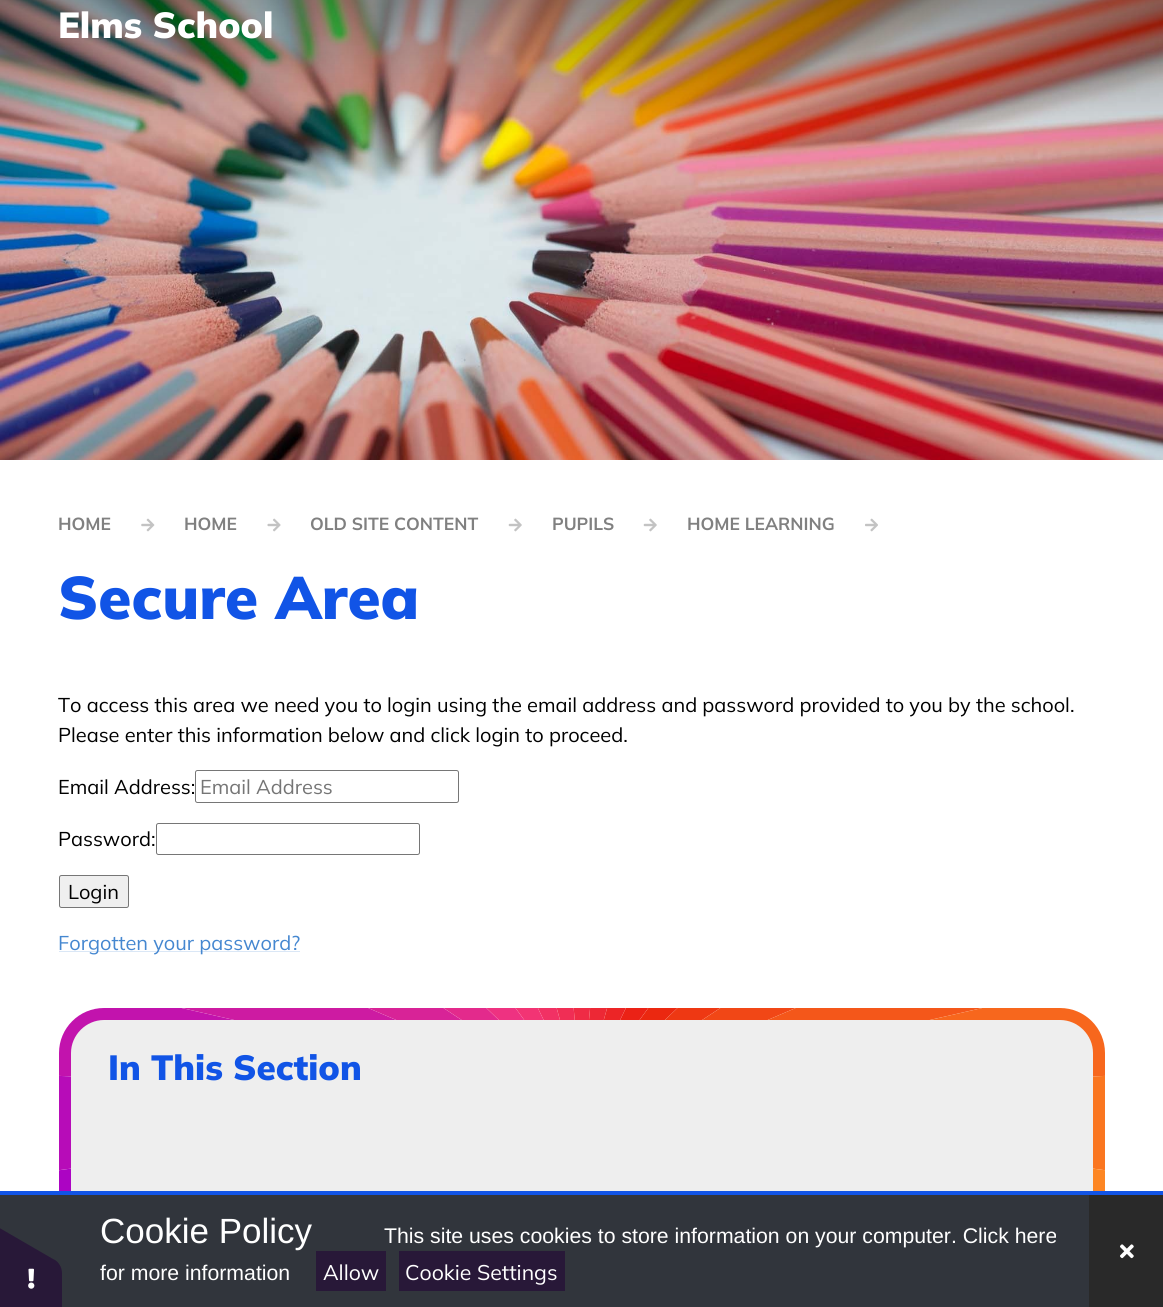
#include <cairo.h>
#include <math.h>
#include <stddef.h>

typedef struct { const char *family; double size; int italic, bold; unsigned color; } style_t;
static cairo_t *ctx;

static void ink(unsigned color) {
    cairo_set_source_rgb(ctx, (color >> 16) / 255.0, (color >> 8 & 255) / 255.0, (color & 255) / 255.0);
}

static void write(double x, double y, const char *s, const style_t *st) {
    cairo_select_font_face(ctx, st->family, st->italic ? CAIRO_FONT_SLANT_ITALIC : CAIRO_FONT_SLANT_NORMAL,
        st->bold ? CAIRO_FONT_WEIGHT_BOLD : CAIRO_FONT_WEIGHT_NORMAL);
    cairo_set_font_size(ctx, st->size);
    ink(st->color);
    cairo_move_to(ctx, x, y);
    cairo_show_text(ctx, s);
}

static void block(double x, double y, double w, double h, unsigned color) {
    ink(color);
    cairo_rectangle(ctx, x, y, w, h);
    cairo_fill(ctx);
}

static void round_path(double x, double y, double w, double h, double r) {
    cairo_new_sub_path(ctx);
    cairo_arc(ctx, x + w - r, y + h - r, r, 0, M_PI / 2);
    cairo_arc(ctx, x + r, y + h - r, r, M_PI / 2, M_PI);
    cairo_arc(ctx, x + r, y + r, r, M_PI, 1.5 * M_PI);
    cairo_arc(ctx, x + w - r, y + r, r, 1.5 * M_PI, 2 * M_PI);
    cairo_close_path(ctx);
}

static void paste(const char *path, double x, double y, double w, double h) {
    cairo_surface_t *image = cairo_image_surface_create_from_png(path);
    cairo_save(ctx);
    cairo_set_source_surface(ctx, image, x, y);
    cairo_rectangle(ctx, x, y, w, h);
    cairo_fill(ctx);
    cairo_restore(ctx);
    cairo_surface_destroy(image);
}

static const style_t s1 = {"Mulish Black", 36.25, 0, 0, 0xffffff};
static const style_t s2 = {"Mulish", 17.5, 0, 1, 0x808080};
static const style_t s3 = {"Mulish Black", 60, 0, 0, 0x1154e6};
static const style_t s4 = {"Mulish", 20, 0, 0, 0x000000};
static const style_t s5 = {"Mulish", 20, 0, 0, 0x757575};
static const style_t s6 = {"Mulish", 20, 0, 0, 0x4587d0};
static const style_t s7 = {"Mulish Black", 35, 0, 0, 0x1154e6};
static const style_t s8 = {"Liberation Sans", 35, 0, 0, 0xffffff};
static const style_t s9 = {"Liberation Sans", 21.25, 0, 0, 0xffffff};
static const style_t s10 = {"Mulish", 21.25, 0, 0, 0xffffff};

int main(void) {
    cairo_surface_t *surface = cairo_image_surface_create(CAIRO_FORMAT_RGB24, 1163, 1307);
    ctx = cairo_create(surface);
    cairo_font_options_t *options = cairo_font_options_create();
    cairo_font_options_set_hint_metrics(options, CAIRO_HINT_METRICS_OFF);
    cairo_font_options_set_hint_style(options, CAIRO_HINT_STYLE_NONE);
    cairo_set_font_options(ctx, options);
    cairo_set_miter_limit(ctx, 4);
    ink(0xffffff);
    cairo_paint(ctx);
    paste("pic1.png", 0, 0, 1163, 460);
    write(58, 38, "Elms School", &s1);
    write(58, 530, "HOME", &s2);
    paste("pic2.png", 141, 518, 14, 14);
    write(184, 530, "HOME", &s2);
    paste("pic3.png", 267, 518, 14, 14);
    write(310, 530, "OLD SITE CONTENT", &s2);
    paste("pic4.png", 508, 518, 14, 14);
    write(552, 530, "PUPILS", &s2);
    paste("pic4.png", 643, 518, 14, 14);
    write(687, 530, "HOME LEARNING", &s2);
    paste("pic5.png", 865, 518, 13, 14);
    write(58, 619, "Secure Area", &s3);
    write(58, 712, "To access this area we need you to login using the email address and password provided to you by the school.", &s4);
    write(58, 742, "Please enter this information below and click login to proceed.", &s4);
    write(58, 794, "Email Address:", &s4);
    round_path(195.5, 770.5, 263, 32, 2);
    ink(0x767676);
    cairo_set_line_width(ctx, 1);
    cairo_stroke(ctx);
    write(200, 794, "Email Address", &s5);
    write(58, 846, "Password:", &s4);
    round_path(156.5, 823.5, 263, 31, 2);
    ink(0x767676);
    cairo_stroke(ctx);
    ink(0xefefef);
    round_path(59.5, 875.5, 69, 32, 2);
    cairo_fill_preserve(ctx);
    ink(0x767676);
    cairo_stroke(ctx);
    write(68, 899, "Login", &s4);
    block(59, 951, 241, 1, 0xdae7f6);
    write(58, 950, "Forgotten your password?", &s6);
    paste("pic6.png", 59, 1008, 1046, 183);
    ink(0xeeeeee);
    cairo_new_path(ctx);
    cairo_move_to(ctx, 104, 1020);
    cairo_line_to(ctx, 1060, 1020);
    cairo_curve_to(ctx, 1078, 1020, 1093, 1035, 1093, 1053);
    cairo_line_to(ctx, 1093, 1191);
    cairo_line_to(ctx, 71, 1191);
    cairo_line_to(ctx, 71, 1053);
    cairo_curve_to(ctx, 71, 1035, 86, 1020, 104, 1020);
    cairo_close_path(ctx);
    cairo_fill(ctx);
    write(108, 1080, "In This Section", &s7);
    block(0, 1191, 1163, 4, 0x1154e6);
    block(0, 1195, 1089, 112, 0x31353c);
    ink(0x281838);
    cairo_new_path(ctx);
    cairo_move_to(ctx, 62, 1274);
    cairo_line_to(ctx, 62, 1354);
    cairo_curve_to(ctx, 62, 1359, 60, 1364, 57, 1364);
    cairo_line_to(ctx, -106, 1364);
    cairo_curve_to(ctx, -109, 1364, -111, 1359, -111, 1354);
    cairo_line_to(ctx, -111, 1274);
    cairo_curve_to(ctx, -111, 1268, -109, 1264, -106, 1264);
    cairo_line_to(ctx, 57, 1264);
    cairo_curve_to(ctx, 60, 1264, 62, 1268, 62, 1274);
    cairo_close_path(ctx);
    cairo_fill(ctx);
    cairo_new_path(ctx);
    cairo_move_to(ctx, -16, 1219);
    cairo_line_to(ctx, 53, 1259);
    cairo_curve_to(ctx, 58, 1261, 61, 1266, 60, 1268);
    cairo_line_to(ctx, -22, 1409);
    cairo_curve_to(ctx, -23, 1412, -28, 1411, -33, 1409);
    cairo_line_to(ctx, -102, 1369);
    cairo_curve_to(ctx, -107, 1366, -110, 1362, -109, 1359);
    cairo_line_to(ctx, -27, 1218);
    cairo_curve_to(ctx, -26, 1216, -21, 1216, -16, 1219);
    cairo_close_path(ctx);
    cairo_fill(ctx);
    paste("pic7.png", 28, 1268, 7, 21);
    write(100, 1243, "Cookie Policy", &s8);
    write(384, 1243, "This site uses cookies to store information on your computer. Click here", &s9);
    write(100, 1280, "for more information", &s9);
    block(316, 1251, 70, 40, 0x281838);
    write(323, 1280, "Allow", &s10);
    block(399, 1251, 166, 40, 0x281838);
    write(405, 1280, "Cookie Settings", &s10);
    block(1089, 1195, 74, 112, 0x292929);
    paste("pic8.png", 1120, 1244, 14, 15);
    cairo_surface_write_to_png(surface, "screenshot.png");
    cairo_font_options_destroy(options);
    cairo_destroy(ctx);
    cairo_surface_destroy(surface);
    return 0;
}
